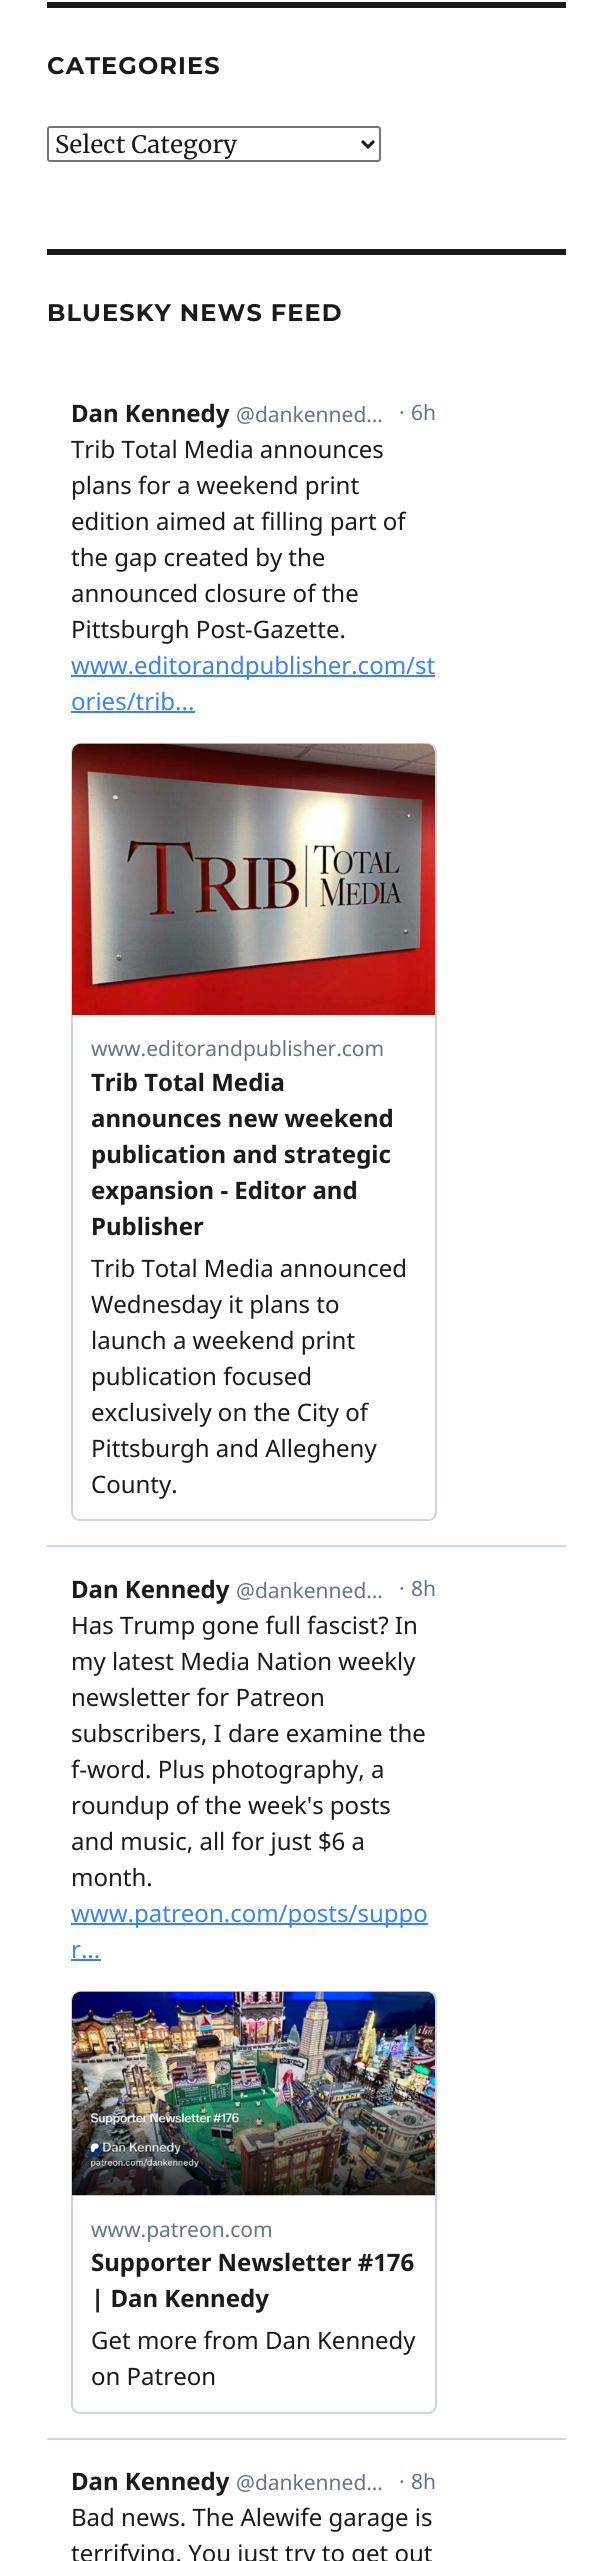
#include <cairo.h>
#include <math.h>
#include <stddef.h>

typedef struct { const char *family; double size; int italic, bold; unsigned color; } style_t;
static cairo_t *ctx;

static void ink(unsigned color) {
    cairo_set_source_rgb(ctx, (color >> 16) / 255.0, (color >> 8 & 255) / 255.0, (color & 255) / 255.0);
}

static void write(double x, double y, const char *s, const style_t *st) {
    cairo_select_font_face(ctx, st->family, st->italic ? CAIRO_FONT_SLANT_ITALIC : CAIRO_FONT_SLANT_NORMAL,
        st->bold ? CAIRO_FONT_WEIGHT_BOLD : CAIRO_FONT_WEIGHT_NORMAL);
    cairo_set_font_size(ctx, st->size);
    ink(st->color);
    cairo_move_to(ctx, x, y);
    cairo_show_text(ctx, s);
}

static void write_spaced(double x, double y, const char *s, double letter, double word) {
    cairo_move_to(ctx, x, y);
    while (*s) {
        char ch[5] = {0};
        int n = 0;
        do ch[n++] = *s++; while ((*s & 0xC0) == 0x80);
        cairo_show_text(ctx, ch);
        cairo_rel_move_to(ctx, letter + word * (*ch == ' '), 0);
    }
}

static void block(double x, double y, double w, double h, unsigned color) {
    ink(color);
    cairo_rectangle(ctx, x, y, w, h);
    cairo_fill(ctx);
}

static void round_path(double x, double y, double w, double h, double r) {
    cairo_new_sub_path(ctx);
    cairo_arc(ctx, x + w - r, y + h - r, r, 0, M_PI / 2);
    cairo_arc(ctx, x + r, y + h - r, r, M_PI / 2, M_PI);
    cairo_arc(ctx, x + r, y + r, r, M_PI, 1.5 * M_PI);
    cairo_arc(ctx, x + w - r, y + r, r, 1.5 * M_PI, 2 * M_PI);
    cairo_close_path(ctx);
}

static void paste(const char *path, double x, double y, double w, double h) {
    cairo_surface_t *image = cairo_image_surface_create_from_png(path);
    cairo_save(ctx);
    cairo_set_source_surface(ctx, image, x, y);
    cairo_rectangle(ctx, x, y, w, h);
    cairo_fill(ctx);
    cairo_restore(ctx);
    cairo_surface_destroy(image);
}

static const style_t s1 = {"Merriweather", 24, 0, 0, 0x1a1a1a};
static const style_t s2 = {"Noto Sans", 24, 0, 1, 0x1a1a1a};
static const style_t s3 = {"Noto Sans", 21, 0, 0, 0x64748b};
static const style_t s4 = {"Noto Sans", 24, 0, 0, 0x1a1a1a};
static const style_t s5 = {"Noto Sans", 24, 0, 0, 0x3b82f6};

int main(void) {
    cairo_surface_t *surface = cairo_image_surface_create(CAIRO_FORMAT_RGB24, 612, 2561);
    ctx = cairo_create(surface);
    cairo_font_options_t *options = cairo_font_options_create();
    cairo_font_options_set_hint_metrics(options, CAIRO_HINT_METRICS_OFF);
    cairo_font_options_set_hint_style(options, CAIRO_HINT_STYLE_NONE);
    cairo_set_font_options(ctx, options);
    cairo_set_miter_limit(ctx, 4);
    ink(0xffffff);
    cairo_paint(ctx);
    block(47, 2, 519, 6, 0x1a1a1a);
    cairo_select_font_face(ctx, "Montserrat Thin", CAIRO_FONT_SLANT_NORMAL, CAIRO_FONT_WEIGHT_NORMAL);
    cairo_set_font_size(ctx, 24);
    write_spaced(47, 74, "CATEGORIES", 1.1, 0);
    round_path(48, 127, 332, 34, 2);
    ink(0x767676);
    cairo_stroke(ctx);
    cairo_new_path(ctx);
    cairo_move_to(ctx, 362, 141);
    cairo_line_to(ctx, 368, 147);
    cairo_line_to(ctx, 374, 141);
    ink(0x1a1a1a);
    cairo_set_line_width(ctx, 3);
    cairo_stroke(ctx);
    write(55, 153, "Select Category", &s1);
    block(47, 249, 519, 6, 0x1a1a1a);
    cairo_select_font_face(ctx, "Montserrat Thin", CAIRO_FONT_SLANT_NORMAL, CAIRO_FONT_WEIGHT_NORMAL);
    write_spaced(47, 321, "BLUESKY NEWS FEED", 1.1, 0);
    block(47, 1545, 519, 2, 0xcbd5e1);
    write(71, 422, "Dan Kennedy", &s2);
    write(236, 422, "@dankenned…", &s3);
    write(399, 420, "·", &s3);
    write(411, 420, "6h", &s3);
    write(71, 458, "Trib Total Media announces", &s4);
    write(71, 494, "plans for a weekend print", &s4);
    write(71, 530, "edition aimed at filling part of", &s4);
    write(71, 566, "the gap created by the", &s4);
    write(71, 602, "announced closure of the", &s4);
    write(71, 638, "Pittsburgh Post-Gazette.", &s4);
    block(71, 675, 364, 2, 0x3b82f6);
    write(71, 674, "www.editorandpublisher.com/st", &s5);
    write(71, 710, "ories/trib...", &s5);
    block(71, 711, 124, 2, 0x3b82f6);
    round_path(72, 744, 364, 776, 8);
    ink(0xcbd5e1);
    cairo_set_line_width(ctx, 2);
    cairo_stroke(ctx);
    paste("pic1.png", 72, 743, 363, 272);
    write(91, 1056, "www.editorandpublisher.com", &s3);
    write(91, 1091, "Trib Total Media", &s2);
    write(91, 1127, "announces new weekend", &s2);
    write(91, 1163, "publication and strategic", &s2);
    write(91, 1199, "expansion - Editor and", &s2);
    write(91, 1235, "Publisher", &s2);
    write(91, 1277, "Trib Total Media announced", &s4);
    write(91, 1313, "Wednesday it plans to", &s4);
    write(91, 1349, "launch a weekend print", &s4);
    write(91, 1385, "publication focused", &s4);
    write(91, 1421, "exclusively on the City of", &s4);
    write(91, 1457, "Pittsburgh and Allegheny", &s4);
    write(91, 1493, "County.", &s4);
    block(47, 2438, 519, 2, 0xcbd5e1);
    write(71, 1598, "Dan Kennedy", &s2);
    write(236, 1598, "@dankenned…", &s3);
    write(399, 1596, "·", &s3);
    write(411, 1596, "8h", &s3);
    write(71, 1634, "Has Trump gone full fascist? In", &s4);
    write(71, 1670, "my latest Media Nation weekly", &s4);
    write(71, 1706, "newsletter for Patreon", &s4);
    write(71, 1742, "subscribers, I dare examine the", &s4);
    write(71, 1778, "f-word. Plus photography, a", &s4);
    write(71, 1814, "roundup of the week's posts", &s4);
    write(71, 1850, "and music, all for just $6 a", &s4);
    write(71, 1886, "month.", &s4);
    block(71, 1923, 357, 2, 0x3b82f6);
    write(71, 1922, "www.patreon.com/posts/suppo", &s5);
    write(71, 1958, "r...", &s5);
    block(71, 1959, 30, 2, 0x3b82f6);
    round_path(72, 1992, 364, 421, 8);
    ink(0xcbd5e1);
    cairo_stroke(ctx);
    paste("pic2.png", 72, 1991, 363, 205);
    write(91, 2237, "www.patreon.com", &s3);
    write(91, 2271, "Supporter Newsletter #176", &s2);
    write(91, 2307, "| Dan Kennedy", &s2);
    write(91, 2349, "Get more from Dan Kennedy", &s4);
    write(91, 2385, "on Patreon", &s4);
    write(71, 2490, "Dan Kennedy", &s2);
    write(236, 2490, "@dankenned…", &s3);
    write(399, 2489, "·", &s3);
    write(411, 2489, "8h", &s3);
    write(71, 2526, "Bad news. The Alewife garage is", &s4);
    write(71, 2562, "terrifying. You just try to get out", &s4);
    cairo_surface_write_to_png(surface, "screenshot.png");
    cairo_font_options_destroy(options);
    cairo_destroy(ctx);
    cairo_surface_destroy(surface);
    return 0;
}
